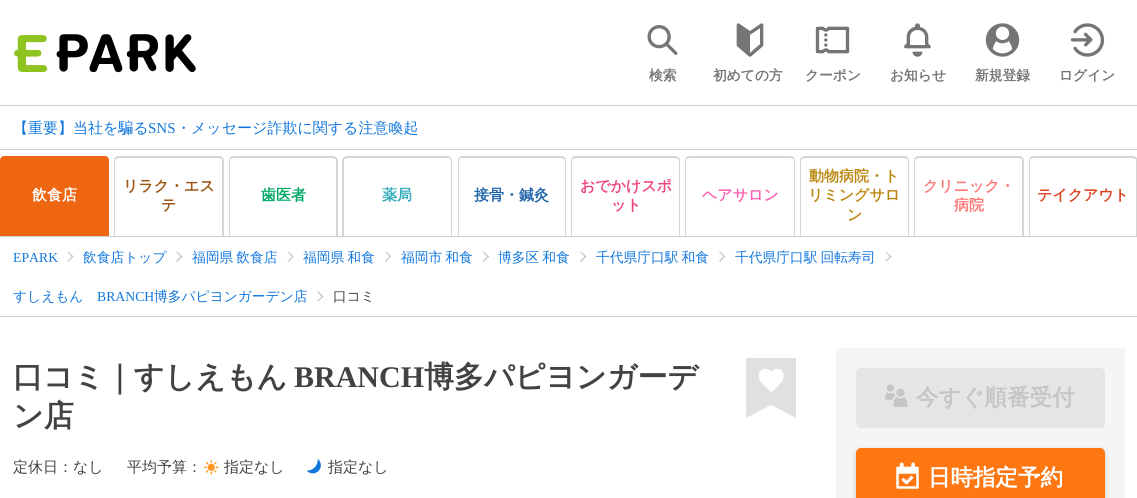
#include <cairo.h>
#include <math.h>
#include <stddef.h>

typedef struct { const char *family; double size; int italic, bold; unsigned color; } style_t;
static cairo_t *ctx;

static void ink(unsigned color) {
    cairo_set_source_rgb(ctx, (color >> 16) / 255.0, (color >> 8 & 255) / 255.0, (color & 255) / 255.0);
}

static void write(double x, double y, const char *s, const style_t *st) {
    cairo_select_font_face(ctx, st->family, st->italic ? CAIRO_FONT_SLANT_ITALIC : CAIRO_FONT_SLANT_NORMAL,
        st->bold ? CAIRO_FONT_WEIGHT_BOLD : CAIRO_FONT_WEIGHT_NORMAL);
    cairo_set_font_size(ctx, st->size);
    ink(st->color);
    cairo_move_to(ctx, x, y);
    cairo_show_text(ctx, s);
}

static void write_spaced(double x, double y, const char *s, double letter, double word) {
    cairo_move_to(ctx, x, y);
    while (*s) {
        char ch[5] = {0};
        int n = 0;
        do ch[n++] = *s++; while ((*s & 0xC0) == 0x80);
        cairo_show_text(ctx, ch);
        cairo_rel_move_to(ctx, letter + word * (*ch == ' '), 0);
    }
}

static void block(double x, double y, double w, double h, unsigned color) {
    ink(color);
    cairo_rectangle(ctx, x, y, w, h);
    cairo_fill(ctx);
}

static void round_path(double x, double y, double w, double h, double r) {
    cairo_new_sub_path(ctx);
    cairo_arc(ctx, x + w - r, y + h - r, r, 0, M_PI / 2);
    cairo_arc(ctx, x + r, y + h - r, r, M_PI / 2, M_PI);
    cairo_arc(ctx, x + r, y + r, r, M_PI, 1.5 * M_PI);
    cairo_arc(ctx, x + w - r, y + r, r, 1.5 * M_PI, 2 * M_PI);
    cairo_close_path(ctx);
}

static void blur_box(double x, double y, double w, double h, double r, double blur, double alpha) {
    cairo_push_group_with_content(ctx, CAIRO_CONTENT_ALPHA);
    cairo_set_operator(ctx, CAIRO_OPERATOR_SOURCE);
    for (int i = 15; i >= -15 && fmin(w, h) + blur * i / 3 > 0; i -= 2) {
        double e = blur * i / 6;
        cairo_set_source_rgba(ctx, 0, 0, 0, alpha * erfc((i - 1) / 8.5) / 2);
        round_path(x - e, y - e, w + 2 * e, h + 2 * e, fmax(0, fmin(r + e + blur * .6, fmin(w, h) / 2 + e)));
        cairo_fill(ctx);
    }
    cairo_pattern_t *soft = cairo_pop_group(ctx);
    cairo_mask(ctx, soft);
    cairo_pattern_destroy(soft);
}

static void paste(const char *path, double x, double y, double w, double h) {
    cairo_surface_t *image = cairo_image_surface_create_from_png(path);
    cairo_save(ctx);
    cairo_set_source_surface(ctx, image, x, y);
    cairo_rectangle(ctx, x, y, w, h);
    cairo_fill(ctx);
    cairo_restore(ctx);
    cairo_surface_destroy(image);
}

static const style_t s1 = {"WenQuanYi Zen Hei", 13.75, 0, 1, 0x757575};
static const style_t s2 = {"WenQuanYi Zen Hei Medium", 15, 0, 0, 0x1177dd};
static const style_t s3 = {"Liberation Serif", 15, 0, 0, 0x1177dd};
static const style_t s4 = {"WenQuanYi Zen Hei", 15, 0, 1, 0xffffff};
static const style_t s5 = {"WenQuanYi Zen Hei", 15, 0, 1, 0x995511};
static const style_t s6 = {"WenQuanYi Zen Hei", 15, 0, 1, 0x00aa66};
static const style_t s7 = {"WenQuanYi Zen Hei", 15, 0, 1, 0x33aabb};
static const style_t s8 = {"WenQuanYi Zen Hei", 15, 0, 1, 0x2266aa};
static const style_t s9 = {"WenQuanYi Zen Hei", 15, 0, 1, 0xee4477};
static const style_t s10 = {"WenQuanYi Zen Hei", 15, 0, 1, 0xff64b4};
static const style_t s11 = {"WenQuanYi Zen Hei", 15, 0, 1, 0xbb8811};
static const style_t s12 = {"WenQuanYi Zen Hei", 15, 0, 1, 0xff7777};
static const style_t s13 = {"WenQuanYi Zen Hei", 15, 0, 1, 0xdd4422};
static const style_t s14 = {"Liberation Serif", 13.75, 0, 0, 0x1177dd};
static const style_t s15 = {"WenQuanYi Zen Hei Medium", 13.75, 0, 0, 0x1177dd};
static const style_t s16 = {"WenQuanYi Zen Hei Medium", 13.75, 0, 0, 0x424242};
static const style_t s17 = {"WenQuanYi Zen Hei", 30, 0, 1, 0x424242};
static const style_t s18 = {"Liberation Serif", 30, 0, 1, 0x424242};
static const style_t s19 = {"WenQuanYi Zen Hei Medium", 15, 0, 0, 0x424242};
static const style_t s20 = {"WenQuanYi Zen Hei", 22.5, 0, 1, 0xc5c5c5};
static const style_t s21 = {"WenQuanYi Zen Hei", 22.5, 0, 1, 0xffffff};

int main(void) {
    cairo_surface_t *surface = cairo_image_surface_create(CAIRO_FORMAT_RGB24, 1137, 498);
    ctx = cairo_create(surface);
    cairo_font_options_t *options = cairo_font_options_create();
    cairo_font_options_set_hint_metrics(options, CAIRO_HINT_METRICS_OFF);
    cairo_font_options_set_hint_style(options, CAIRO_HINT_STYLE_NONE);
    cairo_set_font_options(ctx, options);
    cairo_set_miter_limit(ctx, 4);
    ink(0xffffff);
    cairo_paint(ctx);
    block(0, 149, 1137, 1, 0xcccccc);
    paste("pic1.png", 14, 34, 182, 39);
    paste("pic2.png", 647, 25, 31, 30);
    write(649, 80, "検索", &s1);
    paste("pic3.png", 736, 23, 28, 34);
    write(713, 80, "初めての方", &s1);
    paste("pic4.png", 815, 26, 35, 28);
    write(805, 80, "クーポン", &s1);
    paste("pic5.png", 904, 23, 27, 34);
    write(890, 80, "お知らせ", &s1);
    paste("pic6.png", 985, 23, 35, 34);
    write(975, 80, "新規登録", &s1);
    paste("pic7.png", 1070, 23, 35, 34);
    write(1059, 80, "ログイン", &s1);
    block(0, 105, 1137, 1, 0xcccccc);
    write(13, 133, "【重要】当社を騙る", &s2);
    write(148, 133, "SNS", &s3);
    write(176, 133, "・メッセージ詐欺に関する注意喚起", &s2);
    block(0, 236, 1137, 1, 0xcccccc);
    ink(0xee6611);
    cairo_new_path(ctx);
    cairo_move_to(ctx, 5, 156);
    cairo_line_to(ctx, 104, 156);
    cairo_curve_to(ctx, 107, 156, 109, 158, 109, 161);
    cairo_line_to(ctx, 109, 236);
    cairo_line_to(ctx, 0, 236);
    cairo_line_to(ctx, 0, 161);
    cairo_curve_to(ctx, 0, 158, 2, 156, 5, 156);
    cairo_close_path(ctx);
    cairo_fill(ctx);
    cairo_set_fill_rule(ctx, CAIRO_FILL_RULE_EVEN_ODD);
    cairo_new_path(ctx);
    cairo_move_to(ctx, 5, 156);
    cairo_line_to(ctx, 104, 156);
    cairo_curve_to(ctx, 107, 156, 109, 158, 109, 161);
    cairo_line_to(ctx, 109, 236);
    cairo_line_to(ctx, 0, 236);
    cairo_line_to(ctx, 0, 161);
    cairo_curve_to(ctx, 0, 158, 2, 156, 5, 156);
    cairo_close_path(ctx);
    cairo_move_to(ctx, 5, 158);
    cairo_line_to(ctx, 104, 158);
    cairo_curve_to(ctx, 106, 158, 108, 159, 108, 161);
    cairo_line_to(ctx, 108, 236);
    cairo_line_to(ctx, 1, 236);
    cairo_line_to(ctx, 1, 161);
    cairo_curve_to(ctx, 1, 159, 3, 158, 5, 158);
    cairo_close_path(ctx);
    cairo_fill(ctx);
    write(32, 200, "飲食店", &s4);
    ink(0xd5d5d5);
    cairo_new_path(ctx);
    cairo_move_to(ctx, 119, 156);
    cairo_line_to(ctx, 219, 156);
    cairo_curve_to(ctx, 222, 156, 224, 158, 224, 161);
    cairo_line_to(ctx, 224, 236);
    cairo_line_to(ctx, 114, 236);
    cairo_line_to(ctx, 114, 161);
    cairo_curve_to(ctx, 114, 158, 116, 156, 119, 156);
    cairo_close_path(ctx);
    cairo_move_to(ctx, 119, 158);
    cairo_line_to(ctx, 219, 158);
    cairo_curve_to(ctx, 221, 158, 222, 159, 222, 161);
    cairo_line_to(ctx, 222, 236);
    cairo_line_to(ctx, 115, 236);
    cairo_line_to(ctx, 115, 161);
    cairo_curve_to(ctx, 115, 159, 117, 158, 119, 158);
    cairo_close_path(ctx);
    cairo_fill(ctx);
    write(123, 191, "リラク・エス", &s5);
    write(161, 210, "テ", &s5);
    ink(0xd5d5d5);
    cairo_new_path(ctx);
    cairo_move_to(ctx, 234, 156);
    cairo_line_to(ctx, 332, 156);
    cairo_curve_to(ctx, 335, 156, 338, 158, 338, 161);
    cairo_line_to(ctx, 338, 236);
    cairo_line_to(ctx, 229, 236);
    cairo_line_to(ctx, 229, 161);
    cairo_curve_to(ctx, 229, 158, 231, 156, 234, 156);
    cairo_close_path(ctx);
    cairo_move_to(ctx, 234, 158);
    cairo_line_to(ctx, 332, 158);
    cairo_curve_to(ctx, 335, 158, 336, 159, 336, 161);
    cairo_line_to(ctx, 336, 236);
    cairo_line_to(ctx, 230, 236);
    cairo_line_to(ctx, 230, 161);
    cairo_curve_to(ctx, 230, 159, 232, 158, 234, 158);
    cairo_close_path(ctx);
    cairo_fill(ctx);
    write(261, 200, "歯医者", &s6);
    ink(0xd5d5d5);
    cairo_new_path(ctx);
    cairo_move_to(ctx, 348, 156);
    cairo_line_to(ctx, 448, 156);
    cairo_curve_to(ctx, 450, 156, 452, 158, 452, 161);
    cairo_line_to(ctx, 452, 236);
    cairo_line_to(ctx, 342, 236);
    cairo_line_to(ctx, 342, 161);
    cairo_curve_to(ctx, 342, 158, 345, 156, 348, 156);
    cairo_close_path(ctx);
    cairo_move_to(ctx, 348, 158);
    cairo_line_to(ctx, 448, 158);
    cairo_curve_to(ctx, 450, 158, 451, 159, 451, 161);
    cairo_line_to(ctx, 451, 236);
    cairo_line_to(ctx, 344, 236);
    cairo_line_to(ctx, 344, 161);
    cairo_curve_to(ctx, 344, 159, 345, 158, 348, 158);
    cairo_close_path(ctx);
    cairo_fill(ctx);
    write(382, 200, "薬局", &s7);
    ink(0xd5d5d5);
    cairo_new_path(ctx);
    cairo_move_to(ctx, 462, 156);
    cairo_line_to(ctx, 561, 156);
    cairo_curve_to(ctx, 564, 156, 566, 158, 566, 161);
    cairo_line_to(ctx, 566, 236);
    cairo_line_to(ctx, 458, 236);
    cairo_line_to(ctx, 458, 161);
    cairo_curve_to(ctx, 458, 158, 460, 156, 462, 156);
    cairo_close_path(ctx);
    cairo_move_to(ctx, 462, 158);
    cairo_line_to(ctx, 561, 158);
    cairo_curve_to(ctx, 563, 158, 565, 159, 565, 161);
    cairo_line_to(ctx, 565, 236);
    cairo_line_to(ctx, 459, 236);
    cairo_line_to(ctx, 459, 161);
    cairo_curve_to(ctx, 459, 159, 460, 158, 462, 158);
    cairo_close_path(ctx);
    cairo_fill(ctx);
    write(474, 200, "接骨・鍼灸", &s8);
    ink(0xd5d5d5);
    cairo_new_path(ctx);
    cairo_move_to(ctx, 576, 156);
    cairo_line_to(ctx, 675, 156);
    cairo_curve_to(ctx, 678, 156, 680, 158, 680, 161);
    cairo_line_to(ctx, 680, 236);
    cairo_line_to(ctx, 571, 236);
    cairo_line_to(ctx, 571, 161);
    cairo_curve_to(ctx, 571, 158, 573, 156, 576, 156);
    cairo_close_path(ctx);
    cairo_move_to(ctx, 576, 158);
    cairo_line_to(ctx, 675, 158);
    cairo_curve_to(ctx, 677, 158, 679, 159, 679, 161);
    cairo_line_to(ctx, 679, 236);
    cairo_line_to(ctx, 572, 236);
    cairo_line_to(ctx, 572, 161);
    cairo_curve_to(ctx, 572, 159, 574, 158, 576, 158);
    cairo_close_path(ctx);
    cairo_fill(ctx);
    write(580, 191, "おでかけスポ", &s9);
    write(611, 210, "ット", &s9);
    ink(0xd5d5d5);
    cairo_new_path(ctx);
    cairo_move_to(ctx, 690, 156);
    cairo_line_to(ctx, 790, 156);
    cairo_curve_to(ctx, 793, 156, 795, 158, 795, 161);
    cairo_line_to(ctx, 795, 236);
    cairo_line_to(ctx, 685, 236);
    cairo_line_to(ctx, 685, 161);
    cairo_curve_to(ctx, 685, 158, 687, 156, 690, 156);
    cairo_close_path(ctx);
    cairo_move_to(ctx, 690, 158);
    cairo_line_to(ctx, 790, 158);
    cairo_curve_to(ctx, 792, 158, 794, 159, 794, 161);
    cairo_line_to(ctx, 794, 236);
    cairo_line_to(ctx, 686, 236);
    cairo_line_to(ctx, 686, 161);
    cairo_curve_to(ctx, 686, 159, 688, 158, 690, 158);
    cairo_close_path(ctx);
    cairo_fill(ctx);
    write(702, 200, "ヘアサロン", &s10);
    ink(0xd5d5d5);
    cairo_new_path(ctx);
    cairo_move_to(ctx, 805, 156);
    cairo_line_to(ctx, 904, 156);
    cairo_curve_to(ctx, 907, 156, 909, 158, 909, 161);
    cairo_line_to(ctx, 909, 236);
    cairo_line_to(ctx, 800, 236);
    cairo_line_to(ctx, 800, 161);
    cairo_curve_to(ctx, 800, 158, 802, 156, 805, 156);
    cairo_close_path(ctx);
    cairo_move_to(ctx, 805, 158);
    cairo_line_to(ctx, 904, 158);
    cairo_curve_to(ctx, 906, 158, 908, 159, 908, 161);
    cairo_line_to(ctx, 908, 236);
    cairo_line_to(ctx, 801, 236);
    cairo_line_to(ctx, 801, 161);
    cairo_curve_to(ctx, 801, 159, 803, 158, 805, 158);
    cairo_close_path(ctx);
    cairo_fill(ctx);
    write(809, 181, "動物病院・ト", &s11);
    write(808, 200, "リミングサロ", &s11);
    write(847, 220, "ン", &s11);
    ink(0xd5d5d5);
    cairo_new_path(ctx);
    cairo_move_to(ctx, 919, 156);
    cairo_line_to(ctx, 1019, 156);
    cairo_curve_to(ctx, 1022, 156, 1024, 158, 1024, 161);
    cairo_line_to(ctx, 1024, 236);
    cairo_line_to(ctx, 914, 236);
    cairo_line_to(ctx, 914, 161);
    cairo_curve_to(ctx, 914, 158, 916, 156, 919, 156);
    cairo_close_path(ctx);
    cairo_move_to(ctx, 919, 158);
    cairo_line_to(ctx, 1019, 158);
    cairo_curve_to(ctx, 1021, 158, 1022, 159, 1022, 161);
    cairo_line_to(ctx, 1022, 236);
    cairo_line_to(ctx, 915, 236);
    cairo_line_to(ctx, 915, 161);
    cairo_curve_to(ctx, 915, 159, 917, 158, 919, 158);
    cairo_close_path(ctx);
    cairo_fill(ctx);
    write(923, 191, "クリニック・", &s12);
    write(954, 210, "病院", &s12);
    ink(0xd5d5d5);
    cairo_new_path(ctx);
    cairo_move_to(ctx, 1034, 156);
    cairo_line_to(ctx, 1132, 156);
    cairo_curve_to(ctx, 1135, 156, 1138, 158, 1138, 161);
    cairo_line_to(ctx, 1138, 236);
    cairo_line_to(ctx, 1029, 236);
    cairo_line_to(ctx, 1029, 161);
    cairo_curve_to(ctx, 1029, 158, 1031, 156, 1034, 156);
    cairo_close_path(ctx);
    cairo_move_to(ctx, 1034, 158);
    cairo_line_to(ctx, 1132, 158);
    cairo_curve_to(ctx, 1135, 158, 1136, 159, 1136, 161);
    cairo_line_to(ctx, 1136, 236);
    cairo_line_to(ctx, 1030, 236);
    cairo_line_to(ctx, 1030, 161);
    cairo_curve_to(ctx, 1030, 159, 1032, 158, 1034, 158);
    cairo_close_path(ctx);
    cairo_fill(ctx);
    write(1037, 200, "テイクアウト", &s13);
    block(0, 316, 1137, 1, 0xcccccc);
    write(13, 262, "EPARK", &s14);
    ink(0xc5c5c5);
    cairo_set_fill_rule(ctx, CAIRO_FILL_RULE_WINDING);
    cairo_new_path(ctx);
    cairo_move_to(ctx, 68, 251.5);
    cairo_line_to(ctx, 73.5, 256.5);
    cairo_line_to(ctx, 72.5, 257.5);
    cairo_line_to(ctx, 67.5, 252);
    cairo_close_path(ctx);
    cairo_fill(ctx);
    cairo_new_path(ctx);
    cairo_move_to(ctx, 72.5, 255.5);
    cairo_line_to(ctx, 73.5, 256.5);
    cairo_line_to(ctx, 68, 262);
    cairo_line_to(ctx, 67.5, 261);
    cairo_close_path(ctx);
    cairo_fill(ctx);
    write(83, 262, "飲食店トップ", &s15);
    ink(0xc5c5c5);
    cairo_new_path(ctx);
    cairo_move_to(ctx, 177, 251.5);
    cairo_line_to(ctx, 182.5, 256.5);
    cairo_line_to(ctx, 181.5, 257.5);
    cairo_line_to(ctx, 176, 252);
    cairo_close_path(ctx);
    cairo_fill(ctx);
    cairo_new_path(ctx);
    cairo_move_to(ctx, 181.5, 255.5);
    cairo_line_to(ctx, 182.5, 256.5);
    cairo_line_to(ctx, 177, 262);
    cairo_line_to(ctx, 176, 261);
    cairo_close_path(ctx);
    cairo_fill(ctx);
    ink(0x1177dd);
    write_spaced(192, 262, "福岡県 飲食店", 0, -1);
    ink(0xc5c5c5);
    cairo_new_path(ctx);
    cairo_move_to(ctx, 288.5, 251.5);
    cairo_line_to(ctx, 293.5, 256.5);
    cairo_line_to(ctx, 293, 257.5);
    cairo_line_to(ctx, 287.5, 252);
    cairo_close_path(ctx);
    cairo_fill(ctx);
    cairo_new_path(ctx);
    cairo_move_to(ctx, 293, 255.5);
    cairo_line_to(ctx, 293.5, 256.5);
    cairo_line_to(ctx, 288.5, 262);
    cairo_line_to(ctx, 287.5, 261);
    cairo_close_path(ctx);
    cairo_fill(ctx);
    ink(0x1177dd);
    write_spaced(303, 262, "福岡県 和食", 0, -1);
    ink(0xc5c5c5);
    cairo_new_path(ctx);
    cairo_move_to(ctx, 386, 251.5);
    cairo_line_to(ctx, 391, 256.5);
    cairo_line_to(ctx, 390.5, 257.5);
    cairo_line_to(ctx, 385, 252);
    cairo_close_path(ctx);
    cairo_fill(ctx);
    cairo_new_path(ctx);
    cairo_move_to(ctx, 390.5, 255.5);
    cairo_line_to(ctx, 391, 256.5);
    cairo_line_to(ctx, 386, 262);
    cairo_line_to(ctx, 385, 261);
    cairo_close_path(ctx);
    cairo_fill(ctx);
    ink(0x1177dd);
    write_spaced(401, 262, "福岡市 和食", 0, -1);
    ink(0xc5c5c5);
    cairo_new_path(ctx);
    cairo_move_to(ctx, 483.5, 251.5);
    cairo_line_to(ctx, 489, 256.5);
    cairo_line_to(ctx, 488, 257.5);
    cairo_line_to(ctx, 482.5, 252);
    cairo_close_path(ctx);
    cairo_fill(ctx);
    cairo_new_path(ctx);
    cairo_move_to(ctx, 488, 255.5);
    cairo_line_to(ctx, 489, 256.5);
    cairo_line_to(ctx, 483.5, 262);
    cairo_line_to(ctx, 482.5, 261);
    cairo_close_path(ctx);
    cairo_fill(ctx);
    ink(0x1177dd);
    write_spaced(498, 262, "博多区 和食", 0, -1);
    ink(0xc5c5c5);
    cairo_new_path(ctx);
    cairo_move_to(ctx, 581, 251.5);
    cairo_line_to(ctx, 586.5, 256.5);
    cairo_line_to(ctx, 585.5, 257.5);
    cairo_line_to(ctx, 580, 252);
    cairo_close_path(ctx);
    cairo_fill(ctx);
    cairo_new_path(ctx);
    cairo_move_to(ctx, 585.5, 255.5);
    cairo_line_to(ctx, 586.5, 256.5);
    cairo_line_to(ctx, 581, 262);
    cairo_line_to(ctx, 580, 261);
    cairo_close_path(ctx);
    cairo_fill(ctx);
    ink(0x1177dd);
    write_spaced(596, 262, "千代県庁口駅 和食", 0, -1);
    ink(0xc5c5c5);
    cairo_new_path(ctx);
    cairo_move_to(ctx, 720, 251.5);
    cairo_line_to(ctx, 725, 256.5);
    cairo_line_to(ctx, 724.5, 257.5);
    cairo_line_to(ctx, 719, 252);
    cairo_close_path(ctx);
    cairo_fill(ctx);
    cairo_new_path(ctx);
    cairo_move_to(ctx, 724.5, 255.5);
    cairo_line_to(ctx, 725, 256.5);
    cairo_line_to(ctx, 720, 262);
    cairo_line_to(ctx, 719, 261);
    cairo_close_path(ctx);
    cairo_fill(ctx);
    ink(0x1177dd);
    write_spaced(735, 262, "千代県庁口駅 回転寿司", 0, -1);
    ink(0xc5c5c5);
    cairo_new_path(ctx);
    cairo_move_to(ctx, 886, 251.5);
    cairo_line_to(ctx, 891.5, 256.5);
    cairo_line_to(ctx, 890.5, 257.5);
    cairo_line_to(ctx, 885.5, 252);
    cairo_close_path(ctx);
    cairo_fill(ctx);
    cairo_new_path(ctx);
    cairo_move_to(ctx, 890.5, 255.5);
    cairo_line_to(ctx, 891.5, 256.5);
    cairo_line_to(ctx, 886, 262);
    cairo_line_to(ctx, 885.5, 261);
    cairo_close_path(ctx);
    cairo_fill(ctx);
    write(13, 301, "すしえもん", &s15);
    write(97, 301, "BRANCH", &s14);
    write(154, 301, "博多パピヨンガーデン店", &s15);
    ink(0xc5c5c5);
    cairo_new_path(ctx);
    cairo_move_to(ctx, 318, 291);
    cairo_line_to(ctx, 323.5, 296.5);
    cairo_line_to(ctx, 322.5, 297.5);
    cairo_line_to(ctx, 317, 292);
    cairo_close_path(ctx);
    cairo_fill(ctx);
    cairo_new_path(ctx);
    cairo_move_to(ctx, 322.5, 295.5);
    cairo_line_to(ctx, 323.5, 296.5);
    cairo_line_to(ctx, 318, 301.5);
    cairo_line_to(ctx, 317, 301);
    cairo_close_path(ctx);
    cairo_fill(ctx);
    write(333, 301, "口コミ", &s16);
    write(13, 387, "口コミ｜すしえもん", &s17);
    write(294, 387, "BRANCH", &s18);
    write(424, 387, "博多パピヨンガーデ", &s17);
    write(13, 426, "ン店", &s17);
    ink(0xe0e0e0);
    cairo_new_path(ctx);
    cairo_move_to(ctx, 796, 418);
    cairo_line_to(ctx, 771, 405);
    cairo_line_to(ctx, 746, 418);
    cairo_line_to(ctx, 746, 358);
    cairo_line_to(ctx, 796, 358);
    cairo_close_path(ctx);
    cairo_fill(ctx);
    paste("pic8.png", 758, 368, 26, 25);
    write(13, 472, "定休日：なし", &s19);
    write(127, 472, "平均予算：", &s19);
    paste("pic9.png", 204, 460, 15, 15);
    write(224, 472, "指定なし", &s19);
    paste("pic10.png", 306, 458, 15, 16);
    write(328, 472, "指定なし", &s19);
    block(836, 348, 289, 150, 0xf5f5f5);
    ink(0xe5e5e5);
    round_path(856, 368, 249, 60, 5);
    cairo_fill(ctx);
    paste("pic11.png", 885, 384, 23, 23);
    write(916, 405, "今すぐ順番受付", &s20);
    ink(0x000000);
    blur_box(856, 450, 249, 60, 5, 2.5, 0.2);
    ink(0xff7711);
    round_path(856, 448, 249, 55, 5);
    cairo_fill(ctx);
    paste("pic12.png", 896, 462, 23, 27);
    write(928, 485, "日時指定予約", &s21);
    cairo_surface_write_to_png(surface, "screenshot.png");
    cairo_font_options_destroy(options);
    cairo_destroy(ctx);
    cairo_surface_destroy(surface);
    return 0;
}
